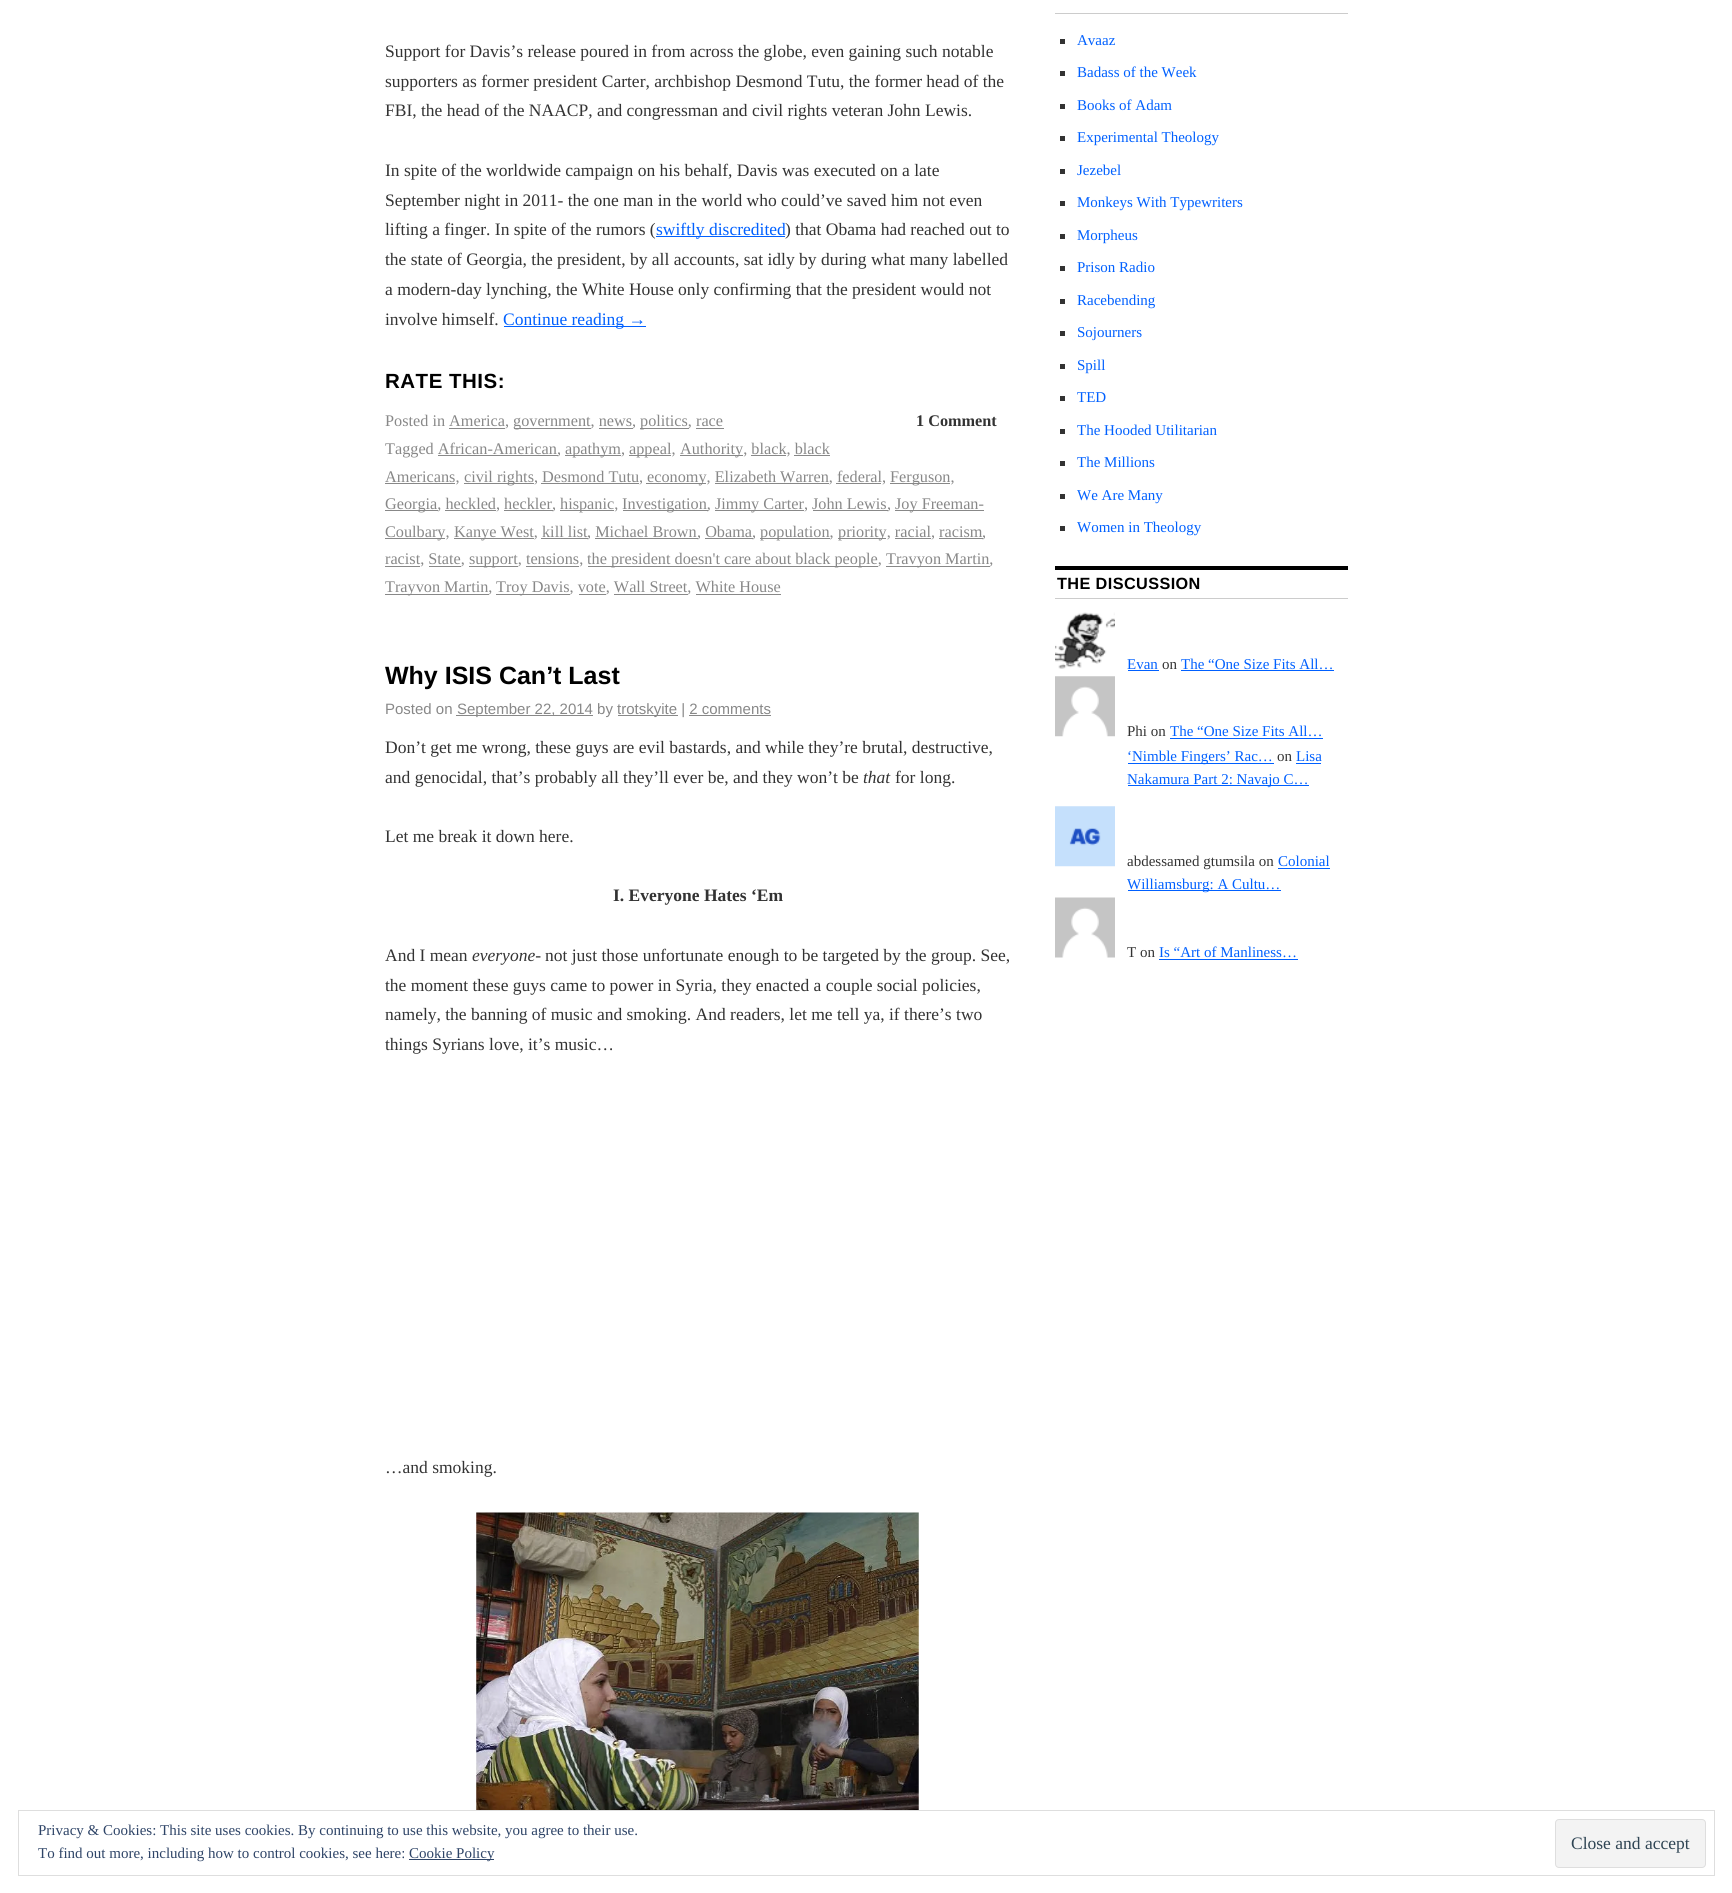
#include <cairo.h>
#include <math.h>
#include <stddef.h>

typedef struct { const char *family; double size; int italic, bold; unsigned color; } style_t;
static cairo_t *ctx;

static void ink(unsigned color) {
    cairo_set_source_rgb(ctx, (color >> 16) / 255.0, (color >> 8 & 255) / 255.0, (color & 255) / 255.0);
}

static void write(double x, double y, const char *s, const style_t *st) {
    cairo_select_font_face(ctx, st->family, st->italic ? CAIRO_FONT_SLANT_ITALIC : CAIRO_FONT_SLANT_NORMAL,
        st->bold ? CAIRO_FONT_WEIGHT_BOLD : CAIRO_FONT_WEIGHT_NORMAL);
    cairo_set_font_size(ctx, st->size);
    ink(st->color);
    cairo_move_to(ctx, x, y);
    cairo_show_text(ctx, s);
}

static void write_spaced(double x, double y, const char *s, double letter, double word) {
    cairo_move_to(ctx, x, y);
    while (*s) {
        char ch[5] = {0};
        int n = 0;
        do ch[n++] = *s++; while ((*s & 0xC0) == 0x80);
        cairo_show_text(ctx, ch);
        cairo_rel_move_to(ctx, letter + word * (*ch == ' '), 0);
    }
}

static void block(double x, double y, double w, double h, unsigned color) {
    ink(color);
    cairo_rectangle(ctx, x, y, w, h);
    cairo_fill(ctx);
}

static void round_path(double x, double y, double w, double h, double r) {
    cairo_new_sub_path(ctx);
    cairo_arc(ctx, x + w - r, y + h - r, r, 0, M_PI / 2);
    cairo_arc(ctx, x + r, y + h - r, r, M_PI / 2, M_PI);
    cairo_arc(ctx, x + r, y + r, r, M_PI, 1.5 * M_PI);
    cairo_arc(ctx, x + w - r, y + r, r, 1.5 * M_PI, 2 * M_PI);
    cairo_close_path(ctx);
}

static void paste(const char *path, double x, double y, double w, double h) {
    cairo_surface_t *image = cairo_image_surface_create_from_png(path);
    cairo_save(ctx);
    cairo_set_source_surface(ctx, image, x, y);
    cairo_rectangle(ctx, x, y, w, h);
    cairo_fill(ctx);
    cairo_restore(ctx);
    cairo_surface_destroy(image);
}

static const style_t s1 = {"Liberation Serif", 17.5, 0, 0, 0x333333};
static const style_t s2 = {"Liberation Serif", 17.5, 0, 0, 0x0060ff};
static const style_t s3 = {"Liberation Serif", 16.25, 0, 0, 0x888888};
static const style_t s4 = {"Liberation Serif", 16.25, 0, 1, 0x333333};
static const style_t s5 = {"Liberation Sans", 25, 0, 1, 0x000000};
static const style_t s6 = {"Liberation Sans", 15, 0, 0, 0x888888};
static const style_t s7 = {"Liberation Serif", 17.5, 1, 0, 0x333333};
static const style_t s8 = {"Liberation Serif", 17.5, 0, 1, 0x333333};
static const style_t s9 = {"Liberation Serif", 15, 0, 0, 0x0060ff};
static const style_t s10 = {"Liberation Serif", 15, 0, 0, 0x333333};
static const style_t s11 = {"Liberation Serif", 15, 0, 0, 0x2e4467};
static const style_t s12 = {"Liberation Serif", 17.5, 0, 0, 0x2e4453};

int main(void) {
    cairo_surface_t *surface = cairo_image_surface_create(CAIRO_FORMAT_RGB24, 1732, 1893);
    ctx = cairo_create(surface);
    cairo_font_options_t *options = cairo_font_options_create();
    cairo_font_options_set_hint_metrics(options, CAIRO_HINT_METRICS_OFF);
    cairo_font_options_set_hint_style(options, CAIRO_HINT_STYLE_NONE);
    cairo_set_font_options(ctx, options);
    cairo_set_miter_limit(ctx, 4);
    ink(0xffffff);
    cairo_paint(ctx);
    write(385, 57, "Support for Davis’s release poured in from across the globe, even gaining such notable", &s1);
    write(385, 87, "supporters as former president Carter, archbishop Desmond Tutu, the former head of the", &s1);
    write(385, 116, "FBI, the head of the NAACP, and congressman and civil rights veteran John Lewis.", &s1);
    write(385, 176, "In spite of the worldwide campaign on his behalf, Davis was executed on a late", &s1);
    write(385, 206, "September night in 2011- the one man in the world who could’ve saved him not even", &s1);
    write(385, 235, "lifting a finger. In spite of the rumors (", &s1);
    block(656, 236, 129, 1, 0x0060ff);
    write(656, 235, "swiftly discredited", &s2);
    write(785, 235, ") that Obama had reached out to", &s1);
    write(385, 265, "the state of Georgia, the president, by all accounts, sat idly by during what many labelled", &s1);
    write(385, 295, "a modern-day lynching, the White House only confirming that the president would not", &s1);
    write(385, 325, "involve himself.", &s1);
    block(504, 326, 142, 1, 0x0060ff);
    write(503, 325, "Continue reading →", &s2);
    cairo_select_font_face(ctx, "Liberation Sans", CAIRO_FONT_SLANT_NORMAL, CAIRO_FONT_WEIGHT_BOLD);
    cairo_set_font_size(ctx, 20.5);
    ink(0x000000);
    write_spaced(385, 388, "RATE THIS:", 0.5, 0);
    write(385, 426, "Posted in America,", &s3);
    block(514, 428, 77, 1, 0x888888);
    write(513, 426, "government, news", &s3);
    block(599, 428, 34, 1, 0x888888);
    write(632, 426, ",", &s3);
    block(640, 428, 49, 1, 0x888888);
    write(640, 426, "politics, race", &s3);
    block(449, 428, 56, 1, 0x888888);
    block(696, 428, 28, 1, 0x888888);
    write(916, 426, "1 Comment", &s4);
    write(385, 454, "Tagged African-American", &s3);
    block(438, 455, 120, 1, 0x888888);
    write(557, 454, ",", &s3);
    block(565, 455, 56, 1, 0x888888);
    write(565, 454, "apathym,", &s3);
    block(629, 455, 42, 1, 0x888888);
    write(629, 454, "appeal,", &s3);
    block(680, 455, 63, 1, 0x888888);
    write(680, 454, "Authority, black, black", &s3);
    block(751, 455, 35, 1, 0x888888);
    block(385, 483, 70, 1, 0x888888);
    write(385, 482, "Americans,", &s3);
    block(794, 455, 36, 1, 0x888888);
    block(464, 483, 70, 1, 0x888888);
    write(464, 482, "civil rights, Desmond Tutu,", &s3);
    block(646, 483, 60, 1, 0x888888);
    write(647, 482, "economy, Elizabeth Warren, federal,", &s3);
    block(890, 483, 60, 1, 0x888888);
    write(890, 482, "Ferguson,", &s3);
    block(541, 483, 98, 1, 0x888888);
    block(715, 483, 114, 1, 0x888888);
    block(836, 483, 45, 1, 0x888888);
    block(385, 510, 53, 1, 0x888888);
    write(385, 509, "Georgia, heckled, heckler", &s3);
    block(504, 510, 49, 1, 0x888888);
    write(552, 509, ",", &s3);
    block(560, 510, 54, 1, 0x888888);
    write(560, 509, "hispanic,", &s3);
    block(623, 510, 85, 1, 0x888888);
    write(622, 509, "Investigation,", &s3);
    block(715, 510, 89, 1, 0x888888);
    write(715, 509, "Jimmy Carter, John Lewis", &s3);
    block(813, 510, 75, 1, 0x888888);
    write(887, 509, ",", &s3);
    block(895, 510, 89, 1, 0x888888);
    write(895, 509, "Joy Freeman-", &s3);
    block(445, 510, 51, 1, 0x888888);
    block(385, 538, 60, 1, 0x888888);
    write(385, 537, "Coulbary,", &s3);
    block(454, 538, 80, 1, 0x888888);
    write(454, 537, "Kanye West, kill list", &s3);
    block(541, 538, 47, 1, 0x888888);
    write(587, 537, ", Michael Brown", &s3);
    block(595, 538, 103, 1, 0x888888);
    write(697, 537, ", Obama", &s3);
    block(705, 538, 48, 1, 0x888888);
    write(752, 537, ",", &s3);
    block(760, 538, 70, 1, 0x888888);
    write(760, 537, "population,", &s3);
    block(838, 538, 48, 1, 0x888888);
    write(838, 537, "priority, racial, racism", &s3);
    block(939, 538, 44, 1, 0x888888);
    write(982, 537, ",", &s3);
    block(895, 538, 36, 1, 0x888888);
    block(385, 566, 35, 1, 0x888888);
    write(385, 564, "racist, State,", &s3);
    block(469, 566, 49, 1, 0x888888);
    write(469, 564, "support, tensions,", &s3);
    block(588, 566, 290, 1, 0x888888);
    write(587, 564, "the president doesn't care about black people,", &s3);
    block(886, 566, 104, 1, 0x888888);
    write(886, 564, "Travyon Martin,", &s3);
    block(429, 566, 32, 1, 0x888888);
    block(526, 566, 53, 1, 0x888888);
    block(385, 594, 104, 1, 0x888888);
    write(385, 592, "Trayvon Martin,", &s3);
    block(496, 594, 74, 1, 0x888888);
    write(496, 592, "Troy Davis, vote, Wall Street, White House", &s3);
    block(579, 594, 27, 1, 0x888888);
    block(614, 594, 74, 1, 0x888888);
    block(696, 594, 85, 1, 0x888888);
    write(385, 684, "Why ISIS Can’t Last", &s5);
    write(385, 714, "Posted on", &s6);
    block(456, 715, 137, 1, 0x888888);
    write(457, 714, "September 22, 2014 by", &s6);
    block(618, 715, 60, 1, 0x888888);
    write(617, 714, "trotskyite | 2 comments", &s6);
    block(689, 715, 82, 1, 0x888888);
    write(385, 753, "Don’t get me wrong, these guys are evil bastards, and while they’re brutal, destructive,", &s1);
    write(385, 783, "and genocidal, that’s probably all they’ll ever be, and they won’t be", &s1);
    write(863, 783, "that", &s7);
    write(895, 783, "for long.", &s1);
    write(385, 842, "Let me break it down here.", &s1);
    write(613, 901, "I. Everyone Hates ‘Em", &s8);
    write(385, 961, "And I mean", &s1);
    write(472, 961, "everyone-", &s7);
    write(545, 961, "not just those unfortunate enough to be targeted by the group. See,", &s1);
    write(385, 991, "the moment these guys came to power in Syria, they enacted a couple social policies,", &s1);
    write(385, 1020, "namely, the banning of music and smoking. And readers, let me tell ya, if there’s two", &s1);
    write(385, 1050, "things Syrians love, it’s music…", &s1);
    write(385, 1473, "…and smoking.", &s1);
    paste("pic1.png", 476, 1512, 443, 298);
    block(1055, 13, 293, 1, 0xcccccc);
    block(1060, 39, 5, 5, 0x333333);
    write(1077, 45, "Avaaz", &s9);
    block(1060, 71, 5, 5, 0x333333);
    write(1077, 77, "Badass of the Week", &s9);
    block(1060, 104, 5, 5, 0x333333);
    write(1077, 110, "Books of Adam", &s9);
    block(1060, 136, 5, 5, 0x333333);
    write(1077, 142, "Experimental Theology", &s9);
    block(1060, 169, 5, 5, 0x333333);
    write(1077, 175, "Jezebel", &s9);
    block(1060, 201, 5, 5, 0x333333);
    write(1077, 207, "Monkeys With Typewriters", &s9);
    block(1060, 234, 5, 5, 0x333333);
    write(1077, 240, "Morpheus", &s9);
    block(1060, 266, 5, 5, 0x333333);
    write(1077, 272, "Prison Radio", &s9);
    block(1060, 299, 5, 5, 0x333333);
    write(1077, 305, "Racebending", &s9);
    block(1060, 331, 5, 5, 0x333333);
    write(1077, 337, "Sojourners", &s9);
    block(1060, 364, 5, 5, 0x333333);
    write(1077, 370, "Spill", &s9);
    block(1060, 396, 5, 5, 0x333333);
    write(1077, 402, "TED", &s9);
    block(1060, 429, 5, 5, 0x333333);
    write(1077, 435, "The Hooded Utilitarian", &s9);
    block(1060, 461, 5, 5, 0x333333);
    write(1077, 467, "The Millions", &s9);
    block(1060, 494, 5, 5, 0x333333);
    write(1077, 500, "We Are Many", &s9);
    block(1060, 526, 5, 5, 0x333333);
    write(1077, 532, "Women in Theology", &s9);
    block(1055, 566, 293, 4, 0x000000);
    block(1055, 598, 293, 1, 0xcccccc);
    cairo_select_font_face(ctx, "Liberation Sans", CAIRO_FONT_SLANT_NORMAL, CAIRO_FONT_WEIGHT_BOLD);
    cairo_set_font_size(ctx, 16.25);
    ink(0x000000);
    write_spaced(1057, 589, "THE DISCUSSION", 0.4, 0);
    paste("pic2.png", 1055, 612, 60, 57);
    write(1127, 669, "Evan", &s9);
    block(1128, 670, 31, 1, 0x0060ff);
    write(1162, 669, "on", &s10);
    write(1181, 669, "The “One Size Fits All…", &s9);
    block(1181, 670, 153, 1, 0x0060ff);
    paste("pic3.png", 1055, 676, 60, 61);
    write(1127, 736, "Phi on", &s10);
    write(1170, 736, "The “One Size Fits All…", &s9);
    block(1170, 738, 153, 1, 0x0060ff);
    block(1128, 763, 146, 1, 0x0060ff);
    write(1127, 761, "‘Nimble Fingers’ Rac…", &s9);
    write(1277, 761, "on", &s10);
    write(1296, 761, "Lisa", &s9);
    block(1296, 763, 25, 1, 0x0060ff);
    block(1128, 785, 181, 1, 0x0060ff);
    write(1127, 784, "Nakamura Part 2: Navajo C…", &s9);
    paste("pic4.png", 1055, 806, 60, 61);
    write(1127, 866, "abdessamed gtumsila on", &s10);
    write(1278, 866, "Colonial", &s9);
    block(1278, 868, 52, 1, 0x0060ff);
    block(1128, 890, 153, 1, 0x0060ff);
    write(1127, 889, "Williamsburg: A Cultu…", &s9);
    paste("pic5.png", 1055, 897, 60, 61);
    write(1127, 957, "T on", &s10);
    write(1159, 957, "Is “Art of Manliness…", &s9);
    block(1159, 959, 139, 1, 0x0060ff);
    cairo_rectangle(ctx, 18.5, 1810.5, 1696, 65);
    ink(0xdedede);
    cairo_set_line_width(ctx, 1);
    cairo_stroke(ctx);
    write(38, 1835, "Privacy & Cookies: This site uses cookies. By continuing to use this website, you agree to their use.", &s11);
    ink(0xf3f3f3);
    round_path(1555.5, 1819.5, 150, 48, 3.5);
    cairo_fill_preserve(ctx);
    ink(0xdedede);
    cairo_stroke(ctx);
    write(1571, 1849, "Close and accept", &s12);
    write(38, 1858, "To find out more, including how to control cookies, see here:", &s11);
    block(409, 1859, 85, 1, 0x2e4467);
    write(409, 1858, "Cookie Policy", &s11);
    cairo_surface_write_to_png(surface, "screenshot.png");
    cairo_font_options_destroy(options);
    cairo_destroy(ctx);
    cairo_surface_destroy(surface);
    return 0;
}
